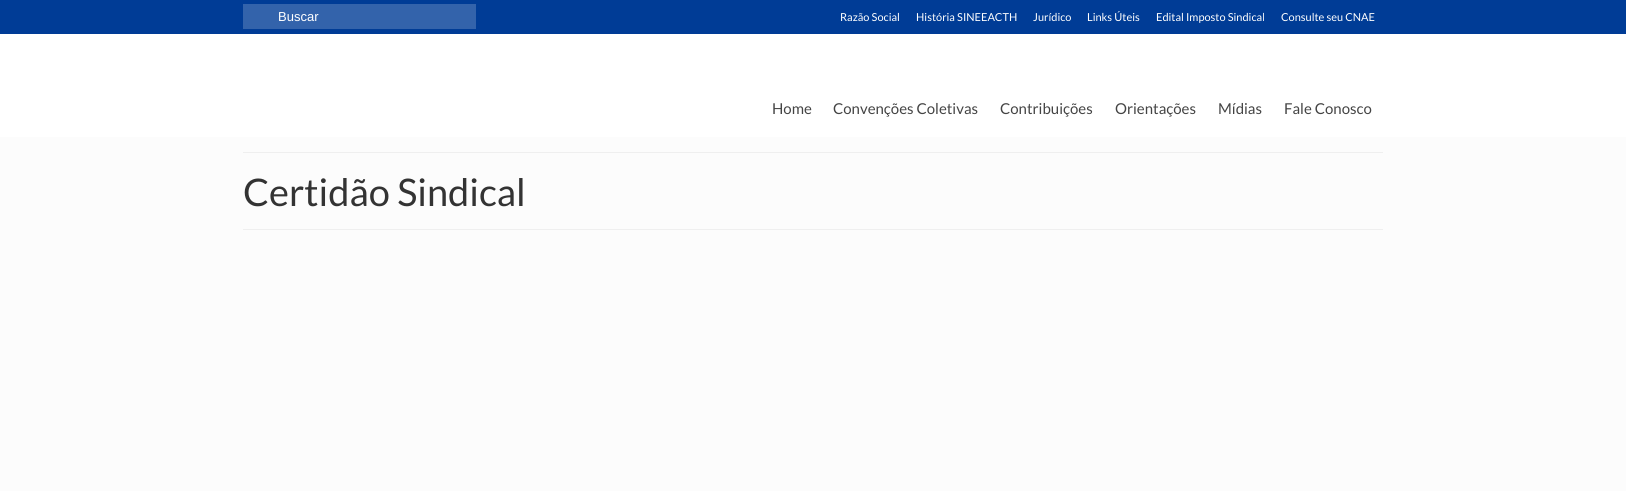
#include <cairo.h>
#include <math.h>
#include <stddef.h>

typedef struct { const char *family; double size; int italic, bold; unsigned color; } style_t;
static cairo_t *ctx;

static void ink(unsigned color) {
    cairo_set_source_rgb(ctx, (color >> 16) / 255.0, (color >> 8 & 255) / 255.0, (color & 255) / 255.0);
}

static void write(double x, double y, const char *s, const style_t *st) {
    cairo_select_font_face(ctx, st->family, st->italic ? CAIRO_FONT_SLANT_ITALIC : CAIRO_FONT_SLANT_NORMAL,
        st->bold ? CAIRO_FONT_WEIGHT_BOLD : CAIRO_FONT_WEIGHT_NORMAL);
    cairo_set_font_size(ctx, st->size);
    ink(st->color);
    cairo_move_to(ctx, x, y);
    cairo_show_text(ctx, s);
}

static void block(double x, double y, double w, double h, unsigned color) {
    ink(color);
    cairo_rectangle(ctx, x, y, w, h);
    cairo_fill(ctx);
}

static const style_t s1 = {"Liberation Sans", 13, 0, 0, 0xffffff};
static const style_t s2 = {"Lato", 11, 0, 0, 0xffffff};
static const style_t s3 = {"Lato", 15, 0, 0, 0x444444};
static const style_t s4 = {"Lato", 38, 0, 0, 0x333333};

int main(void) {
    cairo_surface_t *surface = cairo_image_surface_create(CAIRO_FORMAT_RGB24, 1626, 491);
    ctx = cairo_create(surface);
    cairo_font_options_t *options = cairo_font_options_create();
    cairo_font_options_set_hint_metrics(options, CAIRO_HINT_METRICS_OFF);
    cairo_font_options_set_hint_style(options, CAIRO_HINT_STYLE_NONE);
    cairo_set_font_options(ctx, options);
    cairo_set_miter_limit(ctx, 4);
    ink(0xffffff);
    cairo_paint(ctx);
    block(0, 0, 1626, 34, 0x003c96);
    block(243, 4, 233, 25, 0x3363ab);
    write(278, 21, "Buscar", &s1);
    write(840, 21, "Razão Social", &s2);
    write(916, 21, "História SINEEACTH", &s2);
    write(1033, 21, "Jurídico", &s2);
    write(1087, 21, "Links Úteis", &s2);
    write(1156, 21, "Edital Imposto Sindical", &s2);
    write(1281, 21, "Consulte seu CNAE", &s2);
    write(772, 114, "Home", &s3);
    write(833, 114, "Convenções Coletivas", &s3);
    write(1000, 114, "Contribuições", &s3);
    write(1115, 114, "Orientações", &s3);
    write(1218, 114, "Mídias", &s3);
    write(1284, 114, "Fale Conosco", &s3);
    block(0, 137, 1626, 354, 0xfcfcfc);
    block(243, 152, 1140, 1, 0xefefef);
    block(243, 229, 1140, 1, 0xefefef);
    write(243, 206, "Certidão Sindical", &s4);
    cairo_surface_write_to_png(surface, "screenshot.png");
    cairo_font_options_destroy(options);
    cairo_destroy(ctx);
    cairo_surface_destroy(surface);
    return 0;
}
